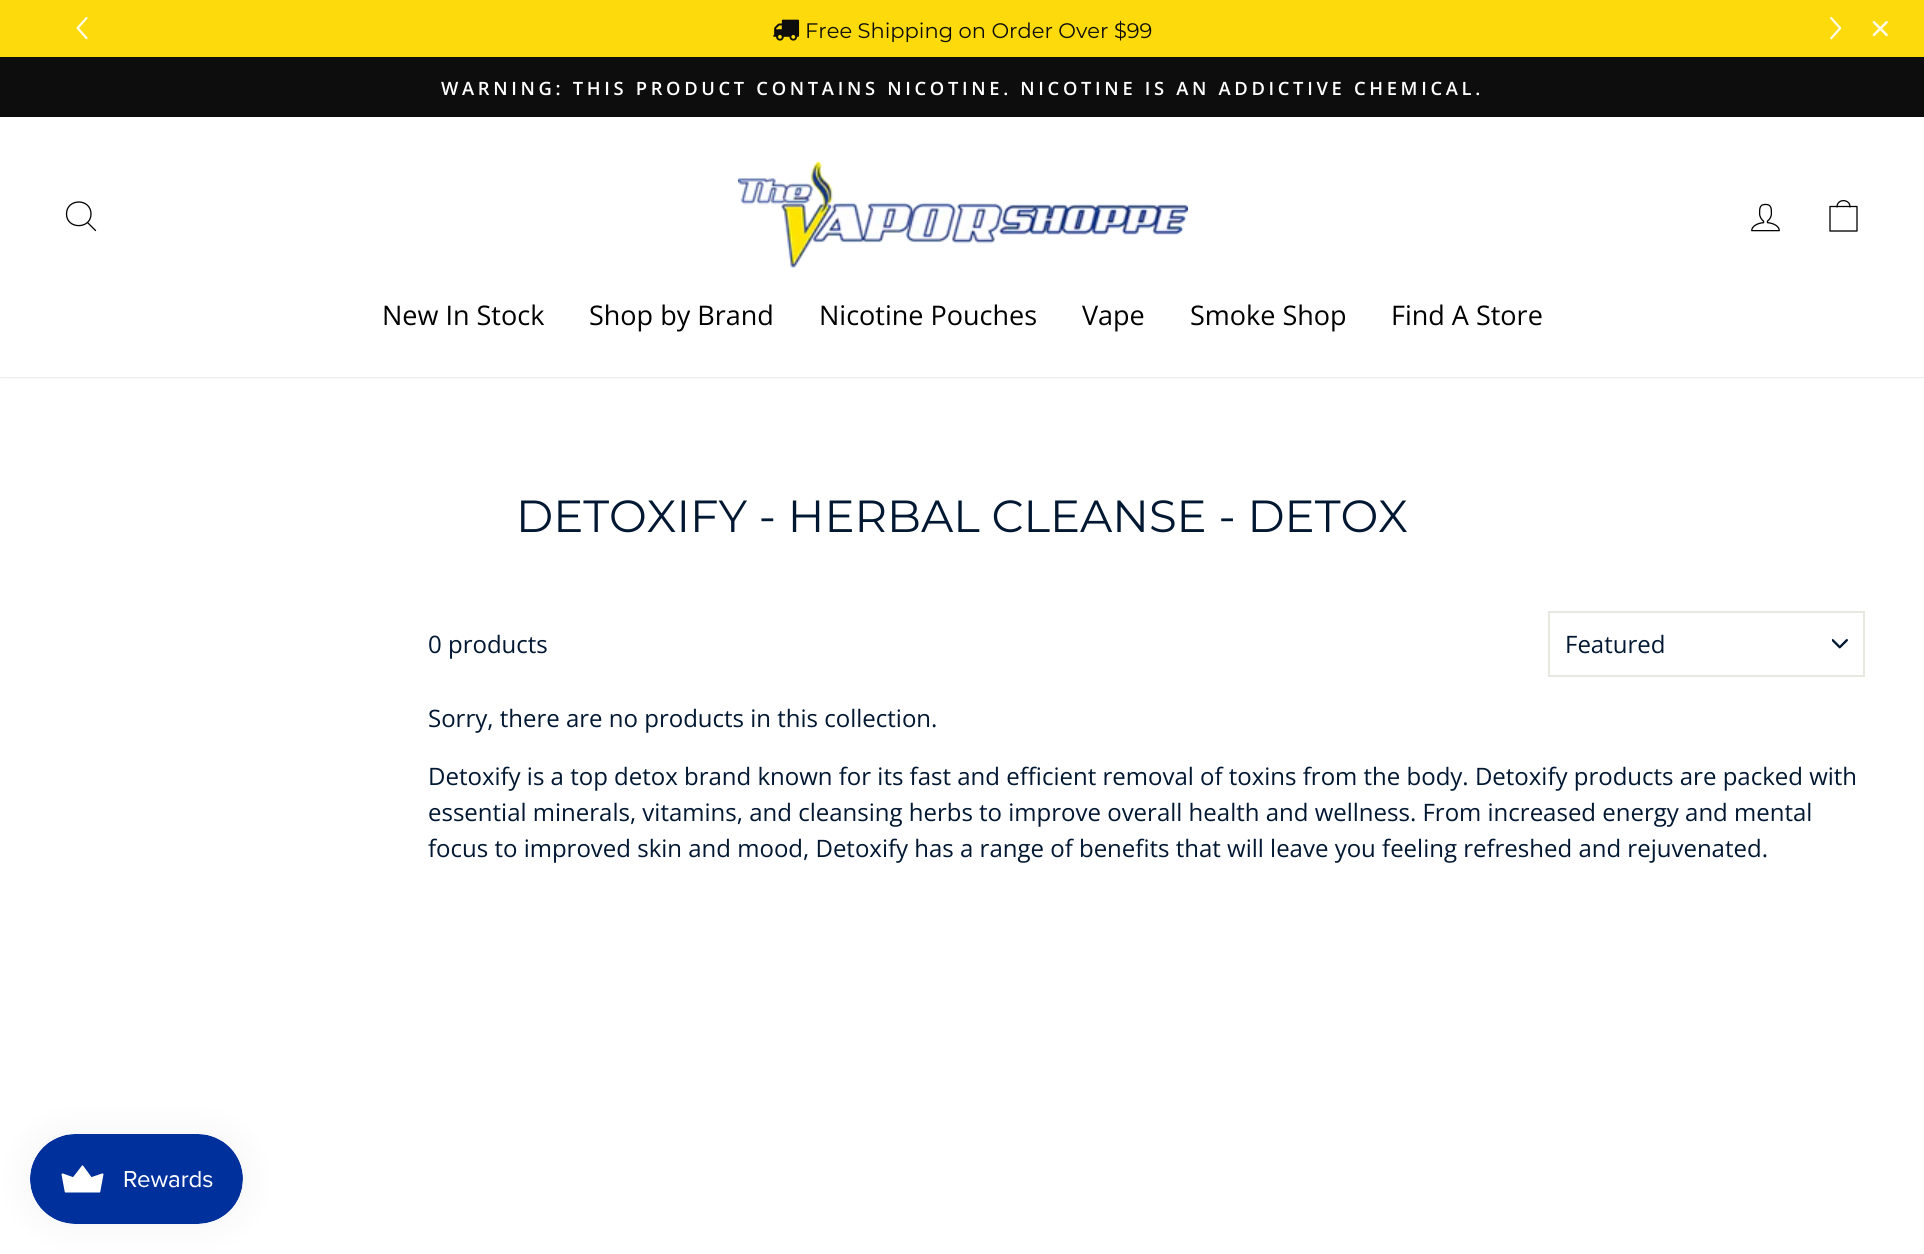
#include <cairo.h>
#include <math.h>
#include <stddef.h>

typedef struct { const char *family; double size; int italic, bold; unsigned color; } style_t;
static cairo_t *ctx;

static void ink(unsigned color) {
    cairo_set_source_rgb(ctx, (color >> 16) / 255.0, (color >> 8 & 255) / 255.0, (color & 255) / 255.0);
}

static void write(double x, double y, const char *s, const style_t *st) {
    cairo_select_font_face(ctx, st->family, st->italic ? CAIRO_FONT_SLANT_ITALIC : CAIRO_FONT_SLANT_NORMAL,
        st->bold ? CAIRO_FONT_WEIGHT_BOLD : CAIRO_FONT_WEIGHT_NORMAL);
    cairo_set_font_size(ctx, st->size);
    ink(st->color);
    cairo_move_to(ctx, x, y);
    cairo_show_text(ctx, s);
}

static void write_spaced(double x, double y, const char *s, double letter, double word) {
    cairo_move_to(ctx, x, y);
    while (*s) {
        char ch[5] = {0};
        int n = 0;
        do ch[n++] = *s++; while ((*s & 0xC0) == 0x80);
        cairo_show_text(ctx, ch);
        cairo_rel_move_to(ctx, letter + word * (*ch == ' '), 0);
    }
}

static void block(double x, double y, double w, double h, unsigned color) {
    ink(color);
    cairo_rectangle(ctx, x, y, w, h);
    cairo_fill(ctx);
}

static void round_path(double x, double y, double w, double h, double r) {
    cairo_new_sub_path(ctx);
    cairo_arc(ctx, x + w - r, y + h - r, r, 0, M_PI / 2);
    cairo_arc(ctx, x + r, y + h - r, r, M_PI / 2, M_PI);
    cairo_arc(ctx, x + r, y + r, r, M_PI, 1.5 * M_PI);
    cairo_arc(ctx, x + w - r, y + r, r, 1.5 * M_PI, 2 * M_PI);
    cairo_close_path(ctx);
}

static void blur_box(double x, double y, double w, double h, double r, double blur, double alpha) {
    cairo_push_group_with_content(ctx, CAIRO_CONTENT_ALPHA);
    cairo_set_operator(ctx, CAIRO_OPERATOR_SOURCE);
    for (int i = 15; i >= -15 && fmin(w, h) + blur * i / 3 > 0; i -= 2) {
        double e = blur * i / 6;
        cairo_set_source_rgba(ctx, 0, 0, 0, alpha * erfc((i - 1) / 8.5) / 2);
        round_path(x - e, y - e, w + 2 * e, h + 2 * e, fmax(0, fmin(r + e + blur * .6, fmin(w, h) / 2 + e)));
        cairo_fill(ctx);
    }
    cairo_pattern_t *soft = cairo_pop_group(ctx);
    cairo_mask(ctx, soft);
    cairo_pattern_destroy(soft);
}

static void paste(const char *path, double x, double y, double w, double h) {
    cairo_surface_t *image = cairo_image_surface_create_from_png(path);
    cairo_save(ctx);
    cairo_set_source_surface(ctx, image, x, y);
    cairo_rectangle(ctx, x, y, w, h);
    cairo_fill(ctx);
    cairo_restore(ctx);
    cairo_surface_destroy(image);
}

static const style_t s1 = {"Montserrat Thin", 21, 0, 0, 0x0e0d0d};
static const style_t s2 = {"Open Sans", 27, 0, 0, 0x000000};
static const style_t s3 = {"Montserrat Thin", 45, 0, 0, 0x011732};
static const style_t s4 = {"Open Sans", 24, 0, 0, 0x011732};

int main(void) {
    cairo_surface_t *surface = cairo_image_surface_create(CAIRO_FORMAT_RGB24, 1924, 1254);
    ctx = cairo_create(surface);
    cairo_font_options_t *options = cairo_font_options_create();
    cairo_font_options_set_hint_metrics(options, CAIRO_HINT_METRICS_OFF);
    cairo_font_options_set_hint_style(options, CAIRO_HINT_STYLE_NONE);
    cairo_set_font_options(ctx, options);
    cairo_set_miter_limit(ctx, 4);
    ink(0xffffff);
    cairo_paint(ctx);
    block(0, 0, 1924, 57, 0xfcda0b);
    paste("pic1.png", 76, 16, 12, 24);
    paste("pic2.png", 773, 19, 27, 22);
    write(805, 38, "Free Shipping on Order Over $99", &s1);
    paste("pic3.png", 1830, 16, 12, 24);
    paste("pic4.png", 1872, 21, 16, 16);
    block(0, 57, 1924, 60, 0x0e0d0d);
    cairo_select_font_face(ctx, "Open Sans SemiBold", CAIRO_FONT_SLANT_NORMAL, CAIRO_FONT_WEIGHT_NORMAL);
    cairo_set_font_size(ctx, 18.35);
    ink(0xffffff);
    write_spaced(441, 95, "WARNING: THIS PRODUCT CONTAINS NICOTINE. NICOTINE IS AN ADDICTIVE CHEMICAL.", 3.67, 0);
    ink(0x000000);
    blur_box(0, 117, 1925, 260, 0, 1, 0.2);
    block(0, 117, 1924, 260, 0xffffff);
    cairo_new_path(ctx);
    cairo_move_to(ctx, 91, 214);
    cairo_curve_to(ctx, 91, 229.5, 66.5, 229.5, 66.5, 214);
    cairo_curve_to(ctx, 66.5, 198, 91, 198, 91, 214);
    cairo_close_path(ctx);
    cairo_move_to(ctx, 95.5, 230.5);
    cairo_line_to(ctx, 87.5, 222.5);
    ink(0x000000);
    cairo_set_line_width(ctx, 1.3);
    cairo_set_line_cap(ctx, CAIRO_LINE_CAP_ROUND);
    cairo_set_line_join(ctx, CAIRO_LINE_JOIN_ROUND);
    cairo_stroke(ctx);
    paste("pic5.png", 738, 162, 450, 107);
    paste("pic6.png", 1751, 203, 29, 29);
    cairo_new_path(ctx);
    cairo_move_to(ctx, 1830, 206.5);
    cairo_line_to(ctx, 1857, 206.5);
    cairo_line_to(ctx, 1857, 231);
    cairo_line_to(ctx, 1830, 231);
    cairo_close_path(ctx);
    cairo_move_to(ctx, 1837, 207);
    cairo_curve_to(ctx, 1837, 198.5, 1850, 198.5, 1850, 207);
    cairo_stroke(ctx);
    write(382, 325, "New In Stock", &s2);
    write(589, 325, "Shop by Brand", &s2);
    write(819, 325, "Nicotine Pouches", &s2);
    write(1082, 325, "Vape", &s2);
    write(1190, 325, "Smoke Shop", &s2);
    write(1391, 325, "Find A Store", &s2);
    write(516, 532, "DETOXIFY - HERBAL CLEANSE - DETOX", &s3);
    write(428, 653, "0 products", &s4);
    paste("pic7.png", 1832, 639, 16, 10);
    cairo_rectangle(ctx, 1549, 612, 315, 64);
    ink(0xe8e8e1);
    cairo_set_line_width(ctx, 2);
    cairo_set_line_cap(ctx, CAIRO_LINE_CAP_BUTT);
    cairo_set_line_join(ctx, CAIRO_LINE_JOIN_MITER);
    cairo_stroke(ctx);
    write(1565, 653, "Featured", &s4);
    write(428, 727, "Sorry, there are no products in this collection.", &s4);
    write(428, 785, "Detoxify is a top detox brand known for its fast and efficient removal of toxins from the body. Detoxify products are packed with", &s4);
    write(428, 821, "essential minerals, vitamins, and cleansing herbs to improve overall health and wellness. From increased energy and mental", &s4);
    write(428, 857, "focus to improved skin and mood, Detoxify has a range of benefits that will leave you feeling refreshed and rejuvenated.", &s4);
    ink(0x000000);
    blur_box(30, 1134, 213, 90, 45, 19, 0.05);
    paste("pic8.png", 30, 1134, 213, 90);
    cairo_surface_write_to_png(surface, "screenshot.png");
    cairo_font_options_destroy(options);
    cairo_destroy(ctx);
    cairo_surface_destroy(surface);
    return 0;
}
